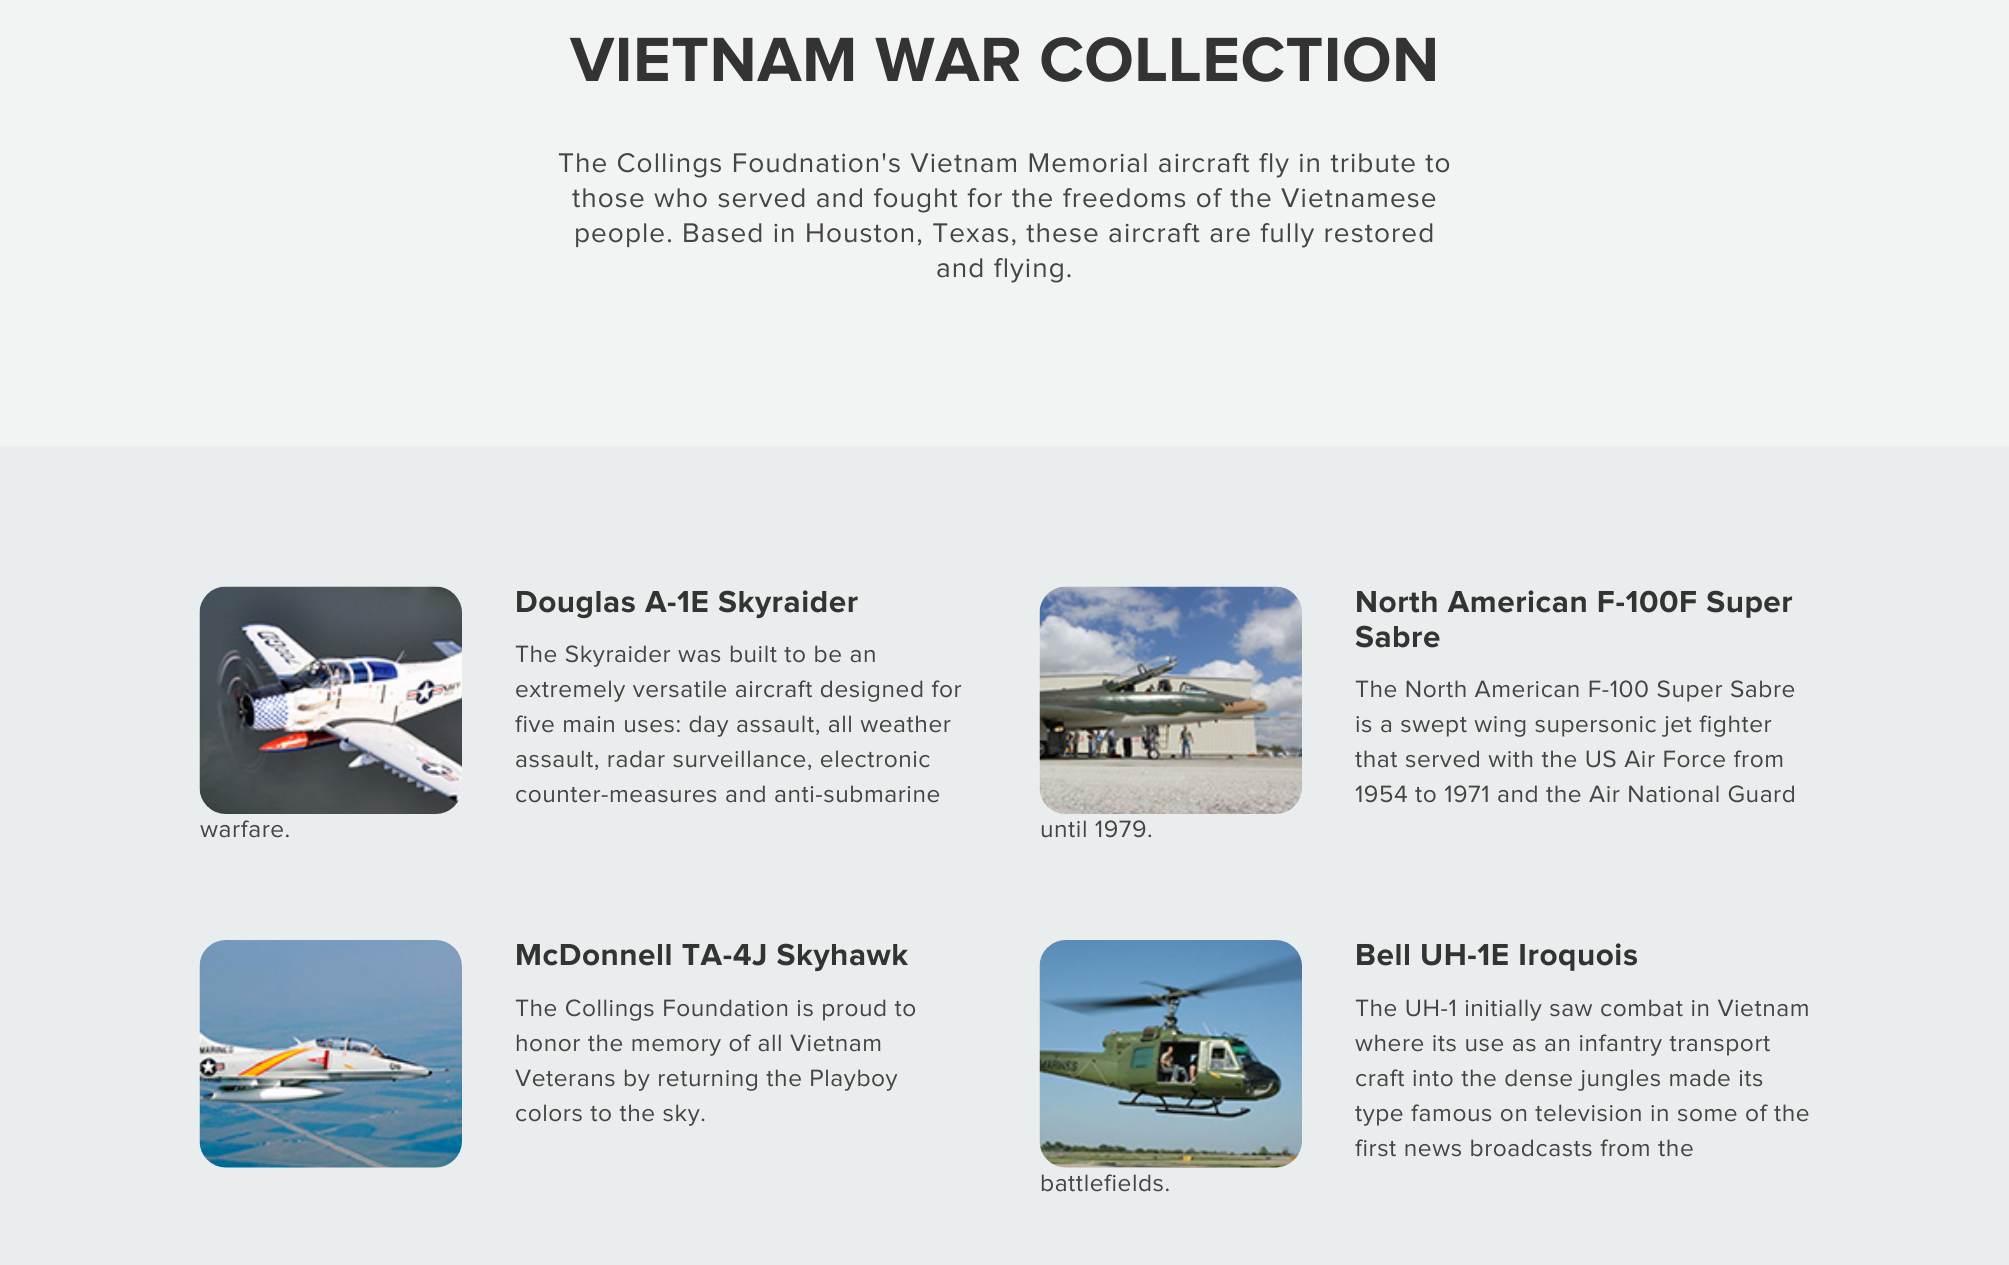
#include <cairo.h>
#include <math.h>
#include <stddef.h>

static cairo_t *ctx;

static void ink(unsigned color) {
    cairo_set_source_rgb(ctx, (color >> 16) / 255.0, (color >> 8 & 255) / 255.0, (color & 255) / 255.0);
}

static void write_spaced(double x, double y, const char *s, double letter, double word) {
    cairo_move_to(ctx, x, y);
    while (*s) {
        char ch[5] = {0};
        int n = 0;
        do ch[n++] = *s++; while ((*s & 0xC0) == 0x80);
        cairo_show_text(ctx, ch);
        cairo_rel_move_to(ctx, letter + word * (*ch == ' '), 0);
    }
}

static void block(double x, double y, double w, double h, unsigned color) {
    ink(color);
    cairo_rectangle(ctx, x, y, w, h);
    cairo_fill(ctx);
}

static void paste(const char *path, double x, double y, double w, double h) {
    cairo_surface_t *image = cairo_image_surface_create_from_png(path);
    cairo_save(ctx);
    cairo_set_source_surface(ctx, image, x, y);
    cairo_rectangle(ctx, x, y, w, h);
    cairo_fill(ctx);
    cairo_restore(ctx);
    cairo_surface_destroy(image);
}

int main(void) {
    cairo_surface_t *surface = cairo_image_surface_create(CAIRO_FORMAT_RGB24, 2009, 1265);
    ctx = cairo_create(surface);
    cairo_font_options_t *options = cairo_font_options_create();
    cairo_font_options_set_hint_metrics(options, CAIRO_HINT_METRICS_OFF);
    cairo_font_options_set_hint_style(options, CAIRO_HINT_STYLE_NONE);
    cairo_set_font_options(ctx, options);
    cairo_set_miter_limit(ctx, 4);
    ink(0xf2f4f4);
    cairo_paint(ctx);
    cairo_select_font_face(ctx, "Proxima Nova", CAIRO_FONT_SLANT_NORMAL, CAIRO_FONT_WEIGHT_BOLD);
    cairo_set_font_size(ctx, 64.75);
    ink(0x333333);
    write_spaced(570, 81, "VIETNAM WAR COLLECTION", 0.55, 0);
    cairo_select_font_face(ctx, "Proxima Nova", CAIRO_FONT_SLANT_NORMAL, CAIRO_FONT_WEIGHT_NORMAL);
    cairo_set_font_size(ctx, 28);
    ink(0x444444);
    write_spaced(558, 172, "The Collings Foudnation's Vietnam Memorial aircraft fly in tribute to", 1.05, 0);
    write_spaced(572, 207, "those who served and fought for the freedoms of the Vietnamese", 1.05, 0);
    write_spaced(574, 242, "people. Based in Houston, Texas, these aircraft are fully restored", 1.05, 0);
    write_spaced(936, 277, "and flying.", 1.05, 0);
    block(0, 446, 2009, 819, 0xeaeded);
    paste("pic1.png", 199, 586, 263, 228);
    cairo_select_font_face(ctx, "Proxima Nova", CAIRO_FONT_SLANT_NORMAL, CAIRO_FONT_WEIGHT_BOLD);
    cairo_set_font_size(ctx, 31.5);
    ink(0x333333);
    write_spaced(515, 612, "Douglas A-1E Skyraider", 0.55, 0);
    cairo_select_font_face(ctx, "Proxima Nova", CAIRO_FONT_SLANT_NORMAL, CAIRO_FONT_WEIGHT_NORMAL);
    cairo_set_font_size(ctx, 24.5);
    ink(0x444444);
    write_spaced(515, 662, "The Skyraider was built to be an", 0.55, 0);
    write_spaced(515, 697, "extremely versatile aircraft designed for", 0.55, 0);
    write_spaced(515, 732, "five main uses: day assault, all weather", 0.55, 0);
    write_spaced(515, 767, "assault, radar surveillance, electronic", 0.55, 0);
    write_spaced(515, 802, "counter-measures and anti-submarine", 0.55, 0);
    write_spaced(200, 837, "warfare.", 0.55, 0);
    paste("pic2.png", 1039, 586, 263, 228);
    cairo_select_font_face(ctx, "Proxima Nova", CAIRO_FONT_SLANT_NORMAL, CAIRO_FONT_WEIGHT_BOLD);
    cairo_set_font_size(ctx, 31.5);
    ink(0x333333);
    write_spaced(1355, 612, "North American F-100F Super", 0.55, 0);
    write_spaced(1355, 647, "Sabre", 0.55, 0);
    cairo_select_font_face(ctx, "Proxima Nova", CAIRO_FONT_SLANT_NORMAL, CAIRO_FONT_WEIGHT_NORMAL);
    cairo_set_font_size(ctx, 24.5);
    ink(0x444444);
    write_spaced(1355, 697, "The North American F-100 Super Sabre", 0.55, 0);
    write_spaced(1355, 732, "is a swept wing supersonic jet fighter", 0.55, 0);
    write_spaced(1355, 767, "that served with the US Air Force from", 0.55, 0);
    write_spaced(1355, 802, "1954 to 1971 and the Air National Guard", 0.55, 0);
    write_spaced(1040, 837, "until 1979.", 0.55, 0);
    paste("pic3.png", 199, 940, 263, 228);
    cairo_select_font_face(ctx, "Proxima Nova", CAIRO_FONT_SLANT_NORMAL, CAIRO_FONT_WEIGHT_BOLD);
    cairo_set_font_size(ctx, 31.5);
    ink(0x333333);
    write_spaced(515, 965, "McDonnell TA-4J Skyhawk", 0.55, 0);
    cairo_select_font_face(ctx, "Proxima Nova", CAIRO_FONT_SLANT_NORMAL, CAIRO_FONT_WEIGHT_NORMAL);
    cairo_set_font_size(ctx, 24.5);
    ink(0x444444);
    write_spaced(515, 1016, "The Collings Foundation is proud to", 0.55, 0);
    write_spaced(515, 1051, "honor the memory of all Vietnam", 0.55, 0);
    write_spaced(515, 1086, "Veterans by returning the Playboy", 0.55, 0);
    write_spaced(515, 1121, "colors to the sky.", 0.55, 0);
    paste("pic4.png", 1039, 940, 263, 228);
    cairo_select_font_face(ctx, "Proxima Nova", CAIRO_FONT_SLANT_NORMAL, CAIRO_FONT_WEIGHT_BOLD);
    cairo_set_font_size(ctx, 31.5);
    ink(0x333333);
    write_spaced(1355, 965, "Bell UH-1E Iroquois", 0.55, 0);
    cairo_select_font_face(ctx, "Proxima Nova", CAIRO_FONT_SLANT_NORMAL, CAIRO_FONT_WEIGHT_NORMAL);
    cairo_set_font_size(ctx, 24.5);
    ink(0x444444);
    write_spaced(1355, 1016, "The UH-1 initially saw combat in Vietnam", 0.55, 0);
    write_spaced(1355, 1051, "where its use as an infantry transport", 0.55, 0);
    write_spaced(1355, 1086, "craft into the dense jungles made its", 0.55, 0);
    write_spaced(1355, 1121, "type famous on television in some of the", 0.55, 0);
    write_spaced(1355, 1156, "first news broadcasts from the", 0.55, 0);
    write_spaced(1040, 1191, "battlefields.", 0.55, 0);
    cairo_surface_write_to_png(surface, "screenshot.png");
    cairo_font_options_destroy(options);
    cairo_destroy(ctx);
    cairo_surface_destroy(surface);
    return 0;
}
